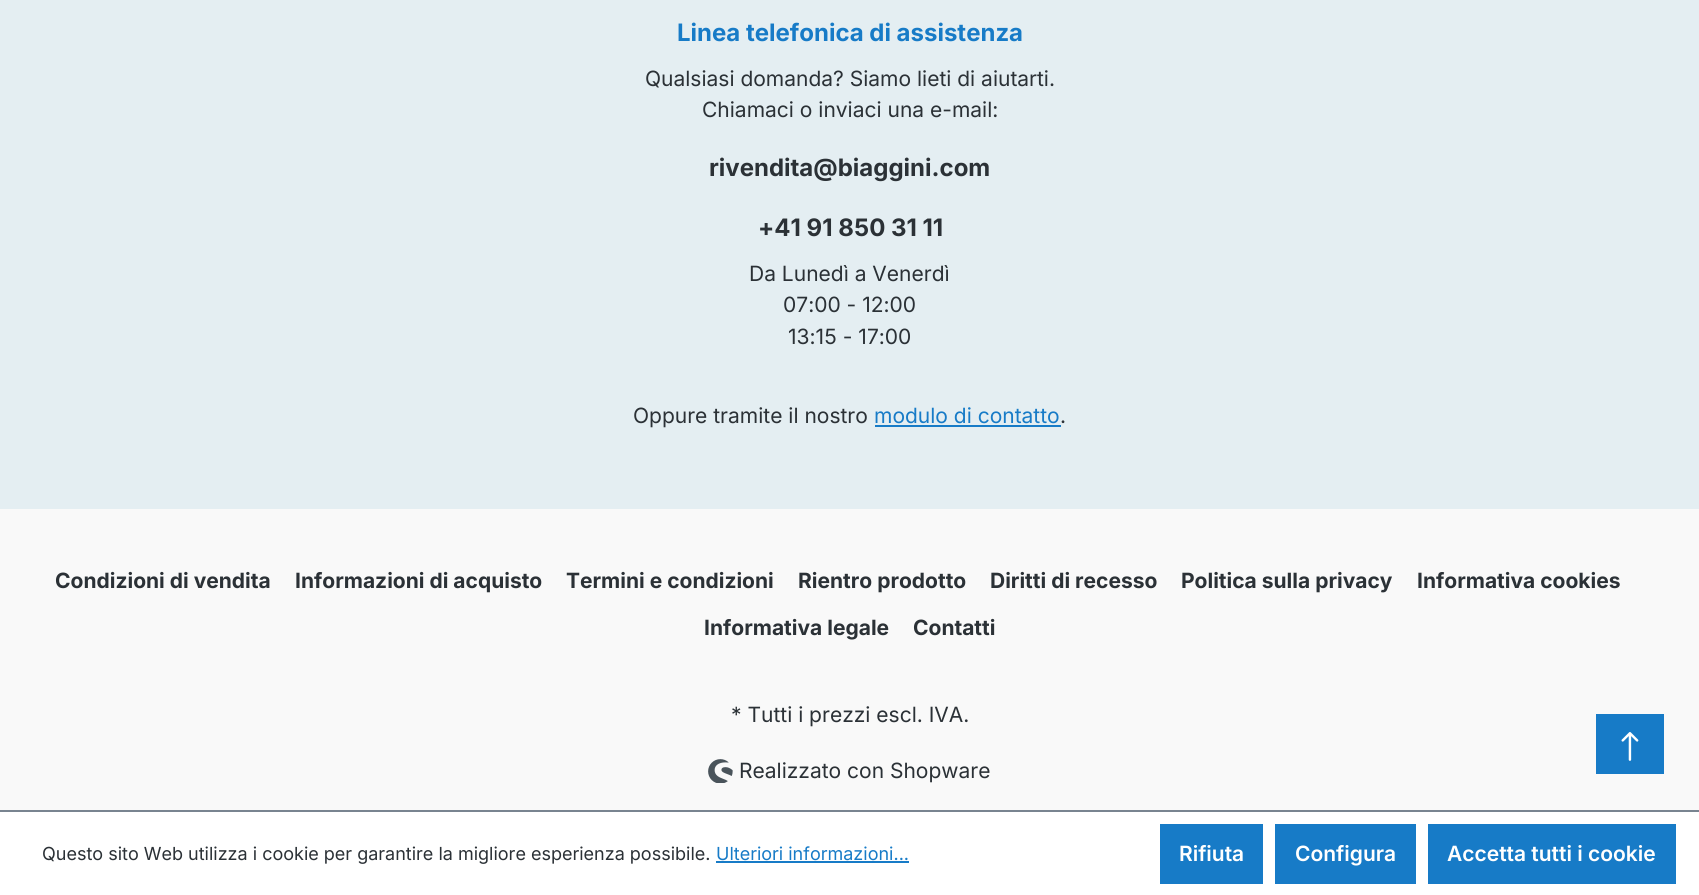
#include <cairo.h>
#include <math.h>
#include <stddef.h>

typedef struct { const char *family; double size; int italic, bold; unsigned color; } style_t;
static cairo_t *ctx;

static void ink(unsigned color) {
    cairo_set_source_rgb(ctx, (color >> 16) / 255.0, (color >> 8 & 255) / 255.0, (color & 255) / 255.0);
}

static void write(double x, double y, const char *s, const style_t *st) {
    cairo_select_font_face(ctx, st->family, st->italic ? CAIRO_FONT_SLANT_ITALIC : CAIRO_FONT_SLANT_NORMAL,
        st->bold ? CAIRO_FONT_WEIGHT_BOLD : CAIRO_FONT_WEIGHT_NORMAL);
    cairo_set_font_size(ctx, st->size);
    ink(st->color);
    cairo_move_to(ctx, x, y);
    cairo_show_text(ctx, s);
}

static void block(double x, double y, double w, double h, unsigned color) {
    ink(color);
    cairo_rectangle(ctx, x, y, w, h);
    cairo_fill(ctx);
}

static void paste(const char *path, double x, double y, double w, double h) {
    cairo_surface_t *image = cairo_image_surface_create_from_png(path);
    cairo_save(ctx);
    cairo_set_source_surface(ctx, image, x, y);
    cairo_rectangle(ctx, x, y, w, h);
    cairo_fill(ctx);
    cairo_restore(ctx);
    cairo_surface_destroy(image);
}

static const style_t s1 = {"Inter", 24, 0, 1, 0x177bc7};
static const style_t s2 = {"Inter", 21, 0, 0, 0x2b3136};
static const style_t s3 = {"Inter", 24, 0, 1, 0x2b3136};
static const style_t s4 = {"Inter", 21, 0, 0, 0x177bc7};
static const style_t s5 = {"Inter", 21, 0, 1, 0x2b3136};
static const style_t s6 = {"Inter", 18, 0, 0, 0x2b3136};
static const style_t s7 = {"Inter", 18, 0, 0, 0x177bc7};
static const style_t s8 = {"Inter SemiBold", 21, 0, 0, 0xffffff};

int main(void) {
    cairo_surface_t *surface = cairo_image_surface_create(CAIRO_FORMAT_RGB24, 1699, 895);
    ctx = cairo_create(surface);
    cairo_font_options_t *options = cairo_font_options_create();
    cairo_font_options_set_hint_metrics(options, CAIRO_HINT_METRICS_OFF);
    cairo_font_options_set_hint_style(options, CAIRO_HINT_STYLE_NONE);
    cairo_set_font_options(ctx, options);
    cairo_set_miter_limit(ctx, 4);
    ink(0xffffff);
    cairo_paint(ctx);
    block(0, 0, 1699, 509, 0xe4eef2);
    write(677, 41, "Linea telefonica di assistenza", &s1);
    write(645, 86, "Qualsiasi domanda? Siamo lieti di aiutarti.", &s2);
    write(702, 117, "Chiamaci o inviaci una e-mail:", &s2);
    write(709, 176, "rivendita@biaggini.com", &s3);
    write(758, 236, "+41 91 850 31 11", &s3);
    write(749, 281, "Da Lunedì a Venerdì", &s2);
    write(783, 312, "07:00 - 12:00", &s2);
    write(788, 344, "13:15 - 17:00", &s2);
    write(633, 423, "Oppure tramite il nostro", &s2);
    write(874, 423, "modulo di contatto", &s4);
    block(875, 425, 186, 2, 0x177bc7);
    write(1060, 423, ".", &s2);
    block(0, 509, 1699, 301, 0xf9f9f9);
    write(55, 588, "Condizioni di vendita", &s5);
    write(295, 588, "Informazioni di acquisto", &s5);
    write(566, 588, "Termini e condizioni", &s5);
    write(798, 588, "Rientro prodotto", &s5);
    write(990, 588, "Diritti di recesso", &s5);
    write(1181, 588, "Politica sulla privacy", &s5);
    write(1417, 588, "Informativa cookies", &s5);
    write(704, 635, "Informativa legale", &s5);
    write(913, 635, "Contatti", &s5);
    write(731, 722, "* Tutti i prezzi escl. IVA.", &s2);
    paste("pic1.png", 708, 759, 25, 24);
    write(739, 778, "Realizzato con Shopware", &s2);
    block(1596, 714, 68, 60, 0x177bc7);
    paste("pic2.png", 1621, 732, 18, 29);
    block(0, 810, 1699, 2, 0x798490);
    write(42, 860, "Questo sito Web utilizza i cookie per garantire la migliore esperienza possibile.", &s6);
    write(716, 860, "Ulteriori informazioni...", &s7);
    block(716, 861, 193, 2, 0x177bc7);
    block(1160, 824, 103, 60, 0x177bc7);
    write(1179, 861, "Rifiuta", &s8);
    block(1275, 824, 141, 60, 0x177bc7);
    write(1295, 861, "Configura", &s8);
    block(1428, 824, 248, 60, 0x177bc7);
    write(1447, 861, "Accetta tutti i cookie", &s8);
    cairo_surface_write_to_png(surface, "screenshot.png");
    cairo_font_options_destroy(options);
    cairo_destroy(ctx);
    cairo_surface_destroy(surface);
    return 0;
}
